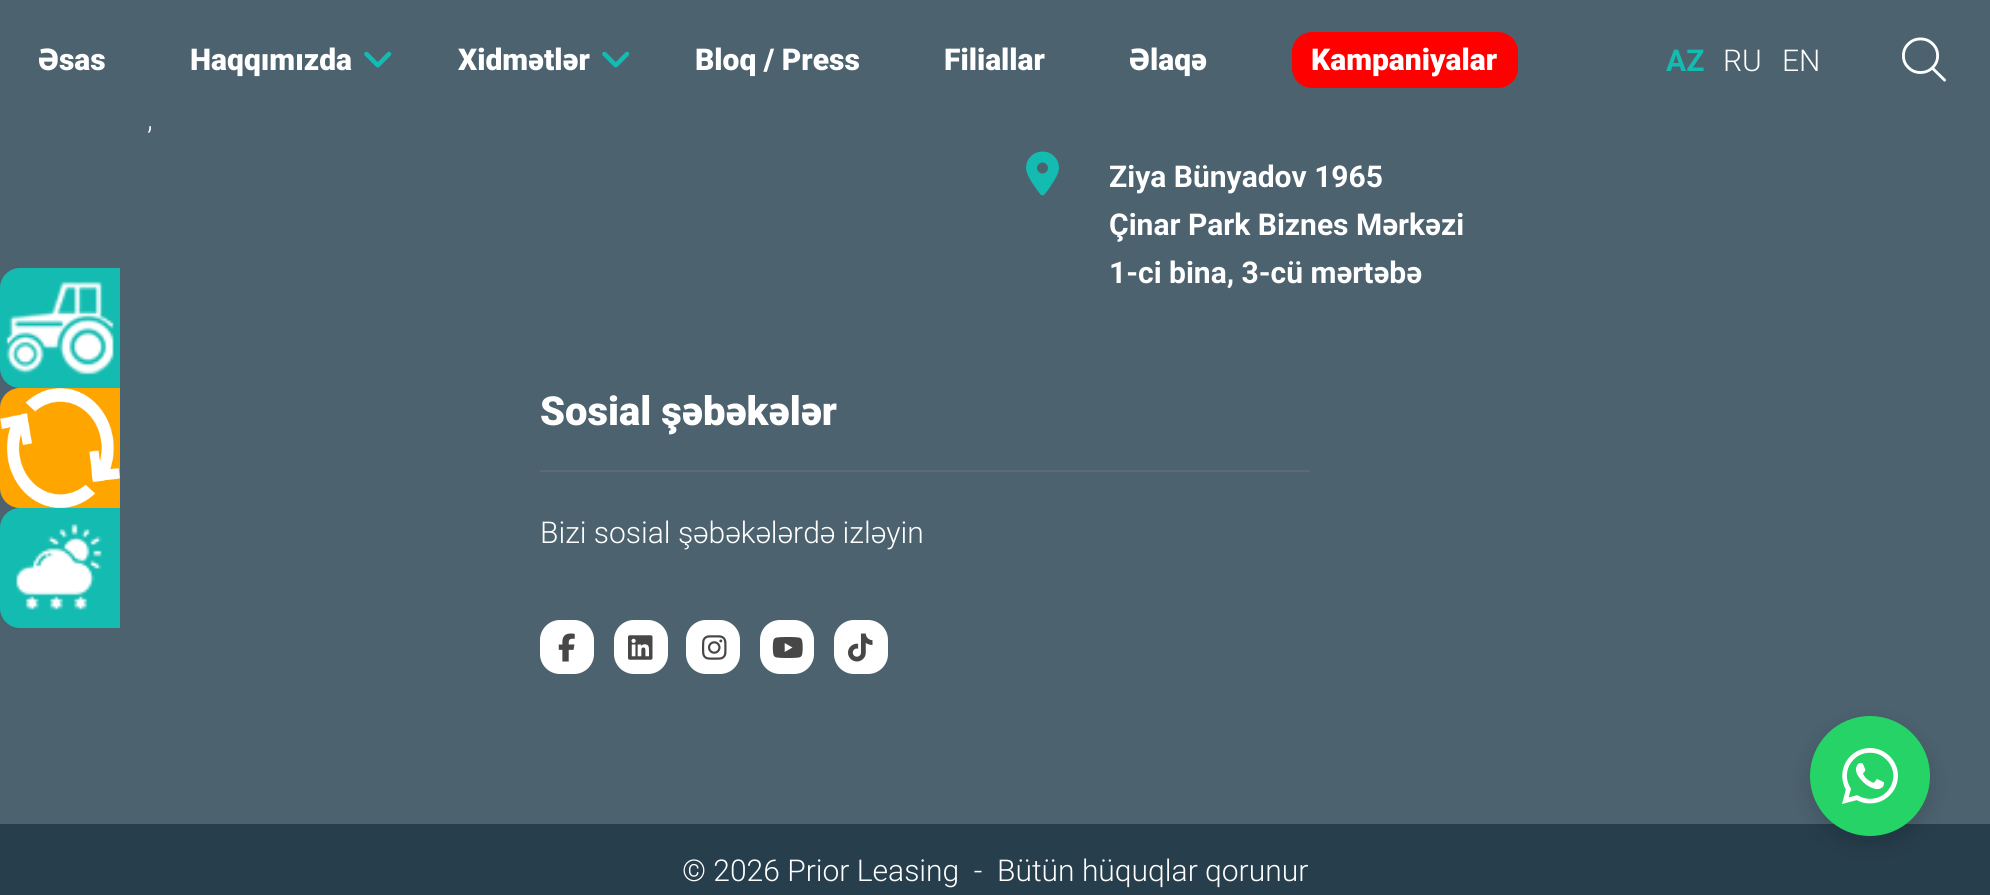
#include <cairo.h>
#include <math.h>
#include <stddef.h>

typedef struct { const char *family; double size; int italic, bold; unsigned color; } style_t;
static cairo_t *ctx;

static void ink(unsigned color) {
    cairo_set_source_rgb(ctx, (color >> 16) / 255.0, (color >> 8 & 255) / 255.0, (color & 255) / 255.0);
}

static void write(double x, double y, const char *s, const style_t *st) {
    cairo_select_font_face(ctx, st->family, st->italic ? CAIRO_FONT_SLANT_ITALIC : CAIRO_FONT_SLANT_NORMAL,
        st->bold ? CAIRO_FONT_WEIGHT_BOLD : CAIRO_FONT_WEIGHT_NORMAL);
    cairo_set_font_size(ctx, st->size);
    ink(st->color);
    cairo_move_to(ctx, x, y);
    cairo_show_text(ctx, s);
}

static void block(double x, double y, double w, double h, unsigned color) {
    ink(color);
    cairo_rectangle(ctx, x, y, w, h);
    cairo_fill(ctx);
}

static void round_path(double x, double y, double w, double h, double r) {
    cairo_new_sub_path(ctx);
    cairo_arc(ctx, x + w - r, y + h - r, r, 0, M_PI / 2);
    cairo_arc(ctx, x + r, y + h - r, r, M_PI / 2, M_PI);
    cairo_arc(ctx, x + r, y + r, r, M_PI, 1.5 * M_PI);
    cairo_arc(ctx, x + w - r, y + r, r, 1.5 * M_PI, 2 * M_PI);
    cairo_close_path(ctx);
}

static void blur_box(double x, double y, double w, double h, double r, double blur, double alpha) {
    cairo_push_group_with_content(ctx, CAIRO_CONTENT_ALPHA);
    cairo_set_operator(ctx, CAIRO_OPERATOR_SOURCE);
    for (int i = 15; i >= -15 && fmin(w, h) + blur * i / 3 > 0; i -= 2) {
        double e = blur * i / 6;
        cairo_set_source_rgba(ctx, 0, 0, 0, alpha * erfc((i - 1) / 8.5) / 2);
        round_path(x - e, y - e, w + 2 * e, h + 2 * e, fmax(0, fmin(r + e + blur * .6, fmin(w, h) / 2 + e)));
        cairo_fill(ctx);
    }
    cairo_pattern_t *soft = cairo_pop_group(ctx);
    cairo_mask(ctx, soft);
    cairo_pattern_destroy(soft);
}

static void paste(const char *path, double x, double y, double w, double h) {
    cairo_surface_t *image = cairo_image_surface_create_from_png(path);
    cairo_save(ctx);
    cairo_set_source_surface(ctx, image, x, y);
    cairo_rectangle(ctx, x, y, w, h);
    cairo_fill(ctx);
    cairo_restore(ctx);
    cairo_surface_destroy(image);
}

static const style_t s1 = {"Roboto Black", 30, 0, 0, 0xffffff};
static const style_t s2 = {"Roboto", 30, 0, 1, 0x14bbb1};
static const style_t s3 = {"Roboto Light", 30, 0, 0, 0xffffff};
static const style_t s4 = {"Roboto", 30, 0, 1, 0xffffff};
static const style_t s5 = {"Roboto Black", 40, 0, 0, 0xffffff};

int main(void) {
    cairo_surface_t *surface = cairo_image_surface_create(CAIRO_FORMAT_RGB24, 1990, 895);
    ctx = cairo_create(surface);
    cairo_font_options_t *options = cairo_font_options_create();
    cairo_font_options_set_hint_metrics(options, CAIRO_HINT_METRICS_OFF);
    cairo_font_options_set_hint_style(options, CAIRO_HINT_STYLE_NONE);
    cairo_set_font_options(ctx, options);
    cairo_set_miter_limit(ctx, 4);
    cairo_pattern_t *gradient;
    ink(0x4c626f);
    cairo_paint(ctx);
    write(38, 70, "Əsas", &s1);
    write(190, 70, "Haqqımızda", &s1);
    paste("pic1.png", 364, 51, 28, 17);
    write(458, 70, "Xidmətlər", &s1);
    paste("pic1.png", 602, 51, 28, 17);
    write(695, 70, "Bloq / Press", &s1);
    write(944, 70, "Filiallar", &s1);
    write(1129, 70, "Əlaqə", &s1);
    ink(0xff0000);
    round_path(1292, 32, 226, 56, 20);
    cairo_fill(ctx);
    write(1311, 70, "Kampaniyalar", &s1);
    write(1666, 71, "AZ", &s2);
    write(1723, 71, "RU", &s3);
    write(1782, 71, "EN", &s3);
    paste("pic2.png", 1902, 37, 44, 45);
    write(147, 129, ",", &s3);
    paste("pic3.png", 1026, 151, 33, 45);
    write(1109, 187, "Ziya Bünyadov 1965", &s4);
    write(1109, 235, "Çinar Park Biznes Mərkəzi", &s4);
    write(1109, 283, "1-ci bina, 3-cü mərtəbə", &s4);
    write(540, 425, "Sosial şəbəkələr", &s5);
    block(540, 470, 770, 2, 0x616873);
    write(540, 543, "Bizi sosial şəbəkələrdə izləyin", &s3);
    round_path(540, 620, 54, 54, 20);
    cairo_fill(ctx);
    paste("pic4.png", 558, 633, 17, 29);
    round_path(614, 620, 54, 54, 20);
    cairo_fill(ctx);
    paste("pic5.png", 628, 635, 25, 25);
    round_path(686, 620, 54, 54, 20);
    cairo_fill(ctx);
    paste("pic6.png", 702, 635, 25, 25);
    round_path(760, 620, 54, 54, 20);
    cairo_fill(ctx);
    paste("pic7.png", 772, 637, 31, 21);
    round_path(834, 620, 54, 54, 20);
    cairo_fill(ctx);
    paste("pic8.png", 848, 633, 25, 29);
    block(0, 824, 1990, 71, 0x273e4c);
    write(682, 881, "© 2026 Prior Leasing  -  Bütün hüquqlar qorunur", &s3);
    ink(0x14bbb1);
    cairo_new_path(ctx);
    cairo_move_to(ctx, 20, 268);
    cairo_line_to(ctx, 120, 268);
    cairo_line_to(ctx, 120, 388);
    cairo_line_to(ctx, 20, 388);
    cairo_curve_to(ctx, 9, 388, 0, 379, 0, 368);
    cairo_line_to(ctx, 0, 288);
    cairo_curve_to(ctx, 0, 277, 9, 268, 20, 268);
    cairo_close_path(ctx);
    cairo_fill(ctx);
    paste("pic9.png", 6, 281, 108, 94);
    gradient = cairo_pattern_create_linear(60, 388, 60, 628);
    cairo_pattern_add_color_stop_rgba(gradient, 0, 1, 0.647, 0, 1);
    cairo_pattern_add_color_stop_rgba(gradient, 0.51, 1, 0.647, 0, 1);
    cairo_pattern_add_color_stop_rgba(gradient, 1, 1, 0, 0, 1);
    cairo_set_source(ctx, gradient);
    cairo_pattern_destroy(gradient);
    cairo_new_path(ctx);
    cairo_move_to(ctx, 20, 388);
    cairo_line_to(ctx, 120, 388);
    cairo_line_to(ctx, 120, 508);
    cairo_line_to(ctx, 20, 508);
    cairo_curve_to(ctx, 9, 508, 0, 499, 0, 488);
    cairo_line_to(ctx, 0, 408);
    cairo_curve_to(ctx, 0, 397, 9, 388, 20, 388);
    cairo_close_path(ctx);
    cairo_fill(ctx);
    paste("pic10.png", 0, 388, 120, 120);
    ink(0x14bbb1);
    cairo_new_path(ctx);
    cairo_move_to(ctx, 20, 508);
    cairo_line_to(ctx, 120, 508);
    cairo_line_to(ctx, 120, 628);
    cairo_line_to(ctx, 20, 628);
    cairo_curve_to(ctx, 9, 628, 0, 619, 0, 608);
    cairo_line_to(ctx, 0, 528);
    cairo_curve_to(ctx, 0, 517, 9, 508, 20, 508);
    cairo_close_path(ctx);
    cairo_fill(ctx);
    paste("pic11.png", 16, 524, 86, 86);
    ink(0x000000);
    blur_box(1810, 724, 120, 120, 60, 12, 0.15);
    ink(0x25d366);
    cairo_arc(ctx, 1870, 776, 60, 0, 2 * M_PI);
    cairo_fill(ctx);
    paste("pic12.png", 1842, 748, 56, 56);
    cairo_surface_write_to_png(surface, "screenshot.png");
    cairo_font_options_destroy(options);
    cairo_destroy(ctx);
    cairo_surface_destroy(surface);
    return 0;
}
